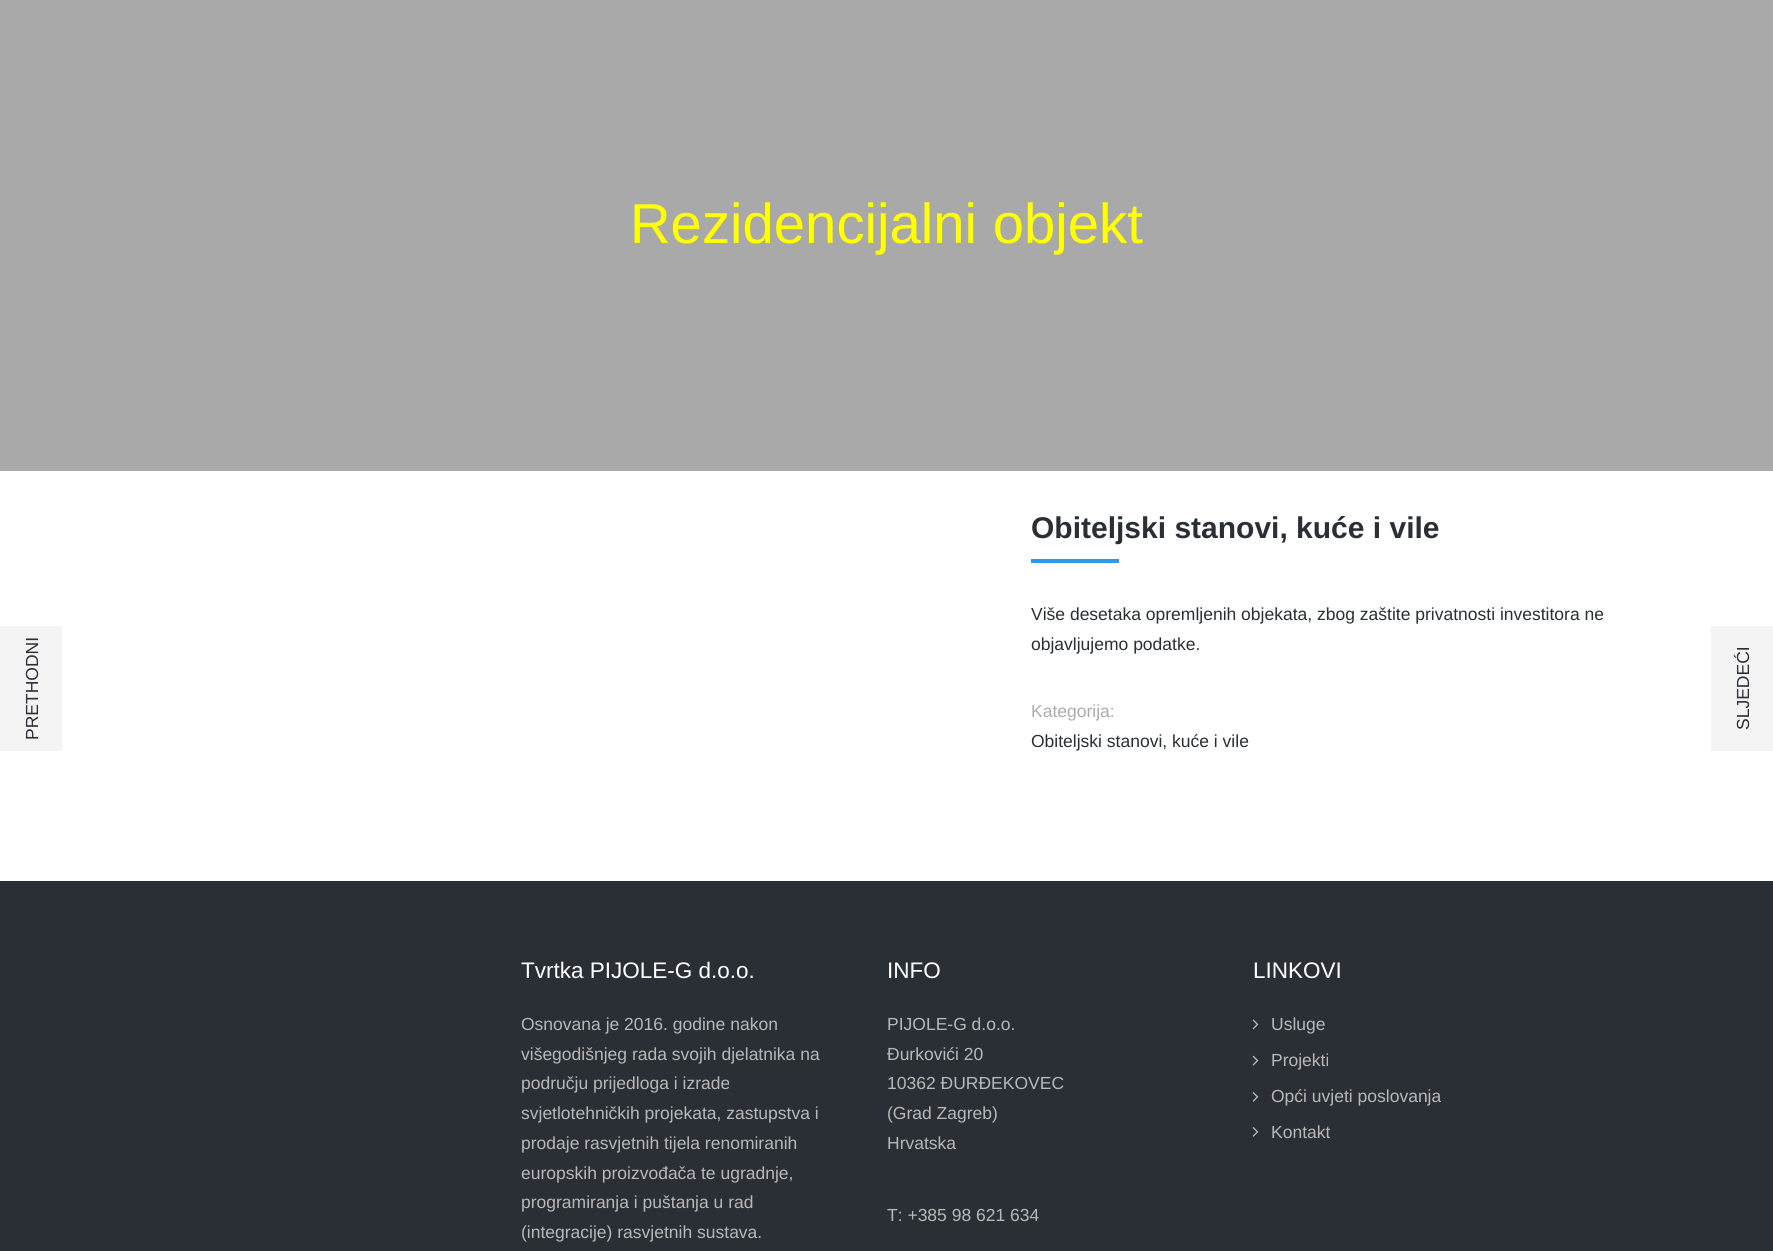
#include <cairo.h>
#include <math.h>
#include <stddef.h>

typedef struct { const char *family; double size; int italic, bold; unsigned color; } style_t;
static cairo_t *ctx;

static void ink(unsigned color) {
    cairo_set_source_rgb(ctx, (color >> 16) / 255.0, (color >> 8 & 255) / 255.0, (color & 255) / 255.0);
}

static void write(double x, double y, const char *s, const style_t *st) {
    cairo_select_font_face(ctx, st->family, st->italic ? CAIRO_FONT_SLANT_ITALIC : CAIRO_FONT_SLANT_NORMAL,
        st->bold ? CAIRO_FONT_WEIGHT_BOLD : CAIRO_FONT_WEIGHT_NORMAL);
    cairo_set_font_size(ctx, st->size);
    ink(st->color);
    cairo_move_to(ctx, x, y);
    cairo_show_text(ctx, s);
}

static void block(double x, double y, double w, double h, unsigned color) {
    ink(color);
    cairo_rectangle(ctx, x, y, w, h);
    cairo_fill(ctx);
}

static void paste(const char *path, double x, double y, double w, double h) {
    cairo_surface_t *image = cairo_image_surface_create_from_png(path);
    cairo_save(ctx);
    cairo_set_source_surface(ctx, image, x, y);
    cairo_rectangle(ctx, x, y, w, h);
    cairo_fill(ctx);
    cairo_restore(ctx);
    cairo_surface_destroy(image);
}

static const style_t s1 = {"Liberation Sans", 17.5, 0, 0, 0x2a2f35};
static const style_t s2 = {"Liberation Sans", 56.25, 0, 0, 0xffff00};
static const style_t s3 = {"Liberation Sans", 30, 0, 1, 0x2a2f35};
static const style_t s4 = {"Liberation Sans", 17.5, 0, 0, 0xacacac};
static const style_t s5 = {"Liberation Sans", 22.5, 0, 0, 0xffffff};
static const style_t s6 = {"Liberation Sans", 17.5, 0, 0, 0xb8b8b8};

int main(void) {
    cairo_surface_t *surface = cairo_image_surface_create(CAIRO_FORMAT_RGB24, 1773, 1251);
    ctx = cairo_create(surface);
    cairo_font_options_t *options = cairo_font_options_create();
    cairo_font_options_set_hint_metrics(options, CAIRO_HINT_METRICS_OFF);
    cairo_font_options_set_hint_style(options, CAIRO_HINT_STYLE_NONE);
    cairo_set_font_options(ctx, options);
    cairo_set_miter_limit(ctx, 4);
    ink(0xffffff);
    cairo_paint(ctx);
    block(0, 626, 62, 125, 0xf4f4f4);
    cairo_save(ctx);
    cairo_translate(ctx, 38, 740);
    cairo_rotate(ctx, -90 * M_PI / 180);
    write(0, 0, "PRETHODNI", &s1);
    cairo_restore(ctx);
    block(0, 0, 1773, 471, 0xa9a9a9);
    write(630, 243, "Rezidencijalni objekt", &s2);
    write(1031, 538, "Obiteljski stanovi, kuće i vile", &s3);
    block(1031, 559, 88, 4, 0x2c99ed);
    write(1031, 620, "Više desetaka opremljenih objekata, zbog zaštite privatnosti investitora ne", &s1);
    write(1031, 650, "objavljujemo podatke.", &s1);
    write(1031, 717, "Kategorija:", &s4);
    write(1031, 747, "Obiteljski stanovi, kuće i vile", &s1);
    block(1711, 626, 62, 125, 0xf4f4f4);
    cairo_save(ctx);
    cairo_translate(ctx, 1749, 730);
    cairo_rotate(ctx, -90 * M_PI / 180);
    write(0, 0, "SLJEDEĆI", &s1);
    cairo_restore(ctx);
    block(0, 881, 1773, 370, 0x2a2f35);
    write(521, 978, "Tvrtka PIJOLE-G d.o.o.", &s5);
    write(521, 1030, "Osnovana je 2016. godine nakon", &s6);
    write(521, 1060, "višegodišnjeg rada svojih djelatnika na", &s6);
    write(521, 1089, "području prijedloga i izrade", &s6);
    write(521, 1119, "svjetlotehničkih projekata, zastupstva i", &s6);
    write(521, 1149, "prodaje rasvjetnih tijela renomiranih", &s6);
    write(521, 1179, "europskih proizvođača te ugradnje,", &s6);
    write(521, 1208, "programiranja i puštanja u rad", &s6);
    write(521, 1238, "(integracije) rasvjetnih sustava.", &s6);
    write(887, 978, "INFO", &s5);
    write(887, 1030, "PIJOLE-G d.o.o.", &s6);
    write(887, 1060, "Đurkovići 20", &s6);
    write(887, 1089, "10362 ĐURĐEKOVEC", &s6);
    write(887, 1119, "(Grad Zagreb)", &s6);
    write(887, 1149, "Hrvatska", &s6);
    write(887, 1221, "T: +385 98 621 634", &s6);
    write(1253, 978, "LINKOVI", &s5);
    paste("pic1.png", 1252, 1019, 7, 11);
    write(1271, 1030, "Usluge", &s6);
    paste("pic2.png", 1252, 1055, 7, 11);
    write(1271, 1066, "Projekti", &s6);
    paste("pic3.png", 1252, 1092, 7, 10);
    write(1271, 1102, "Opći uvjeti poslovanja", &s6);
    paste("pic3.png", 1252, 1127, 7, 10);
    write(1271, 1138, "Kontakt", &s6);
    cairo_surface_write_to_png(surface, "screenshot.png");
    cairo_font_options_destroy(options);
    cairo_destroy(ctx);
    cairo_surface_destroy(surface);
    return 0;
}
